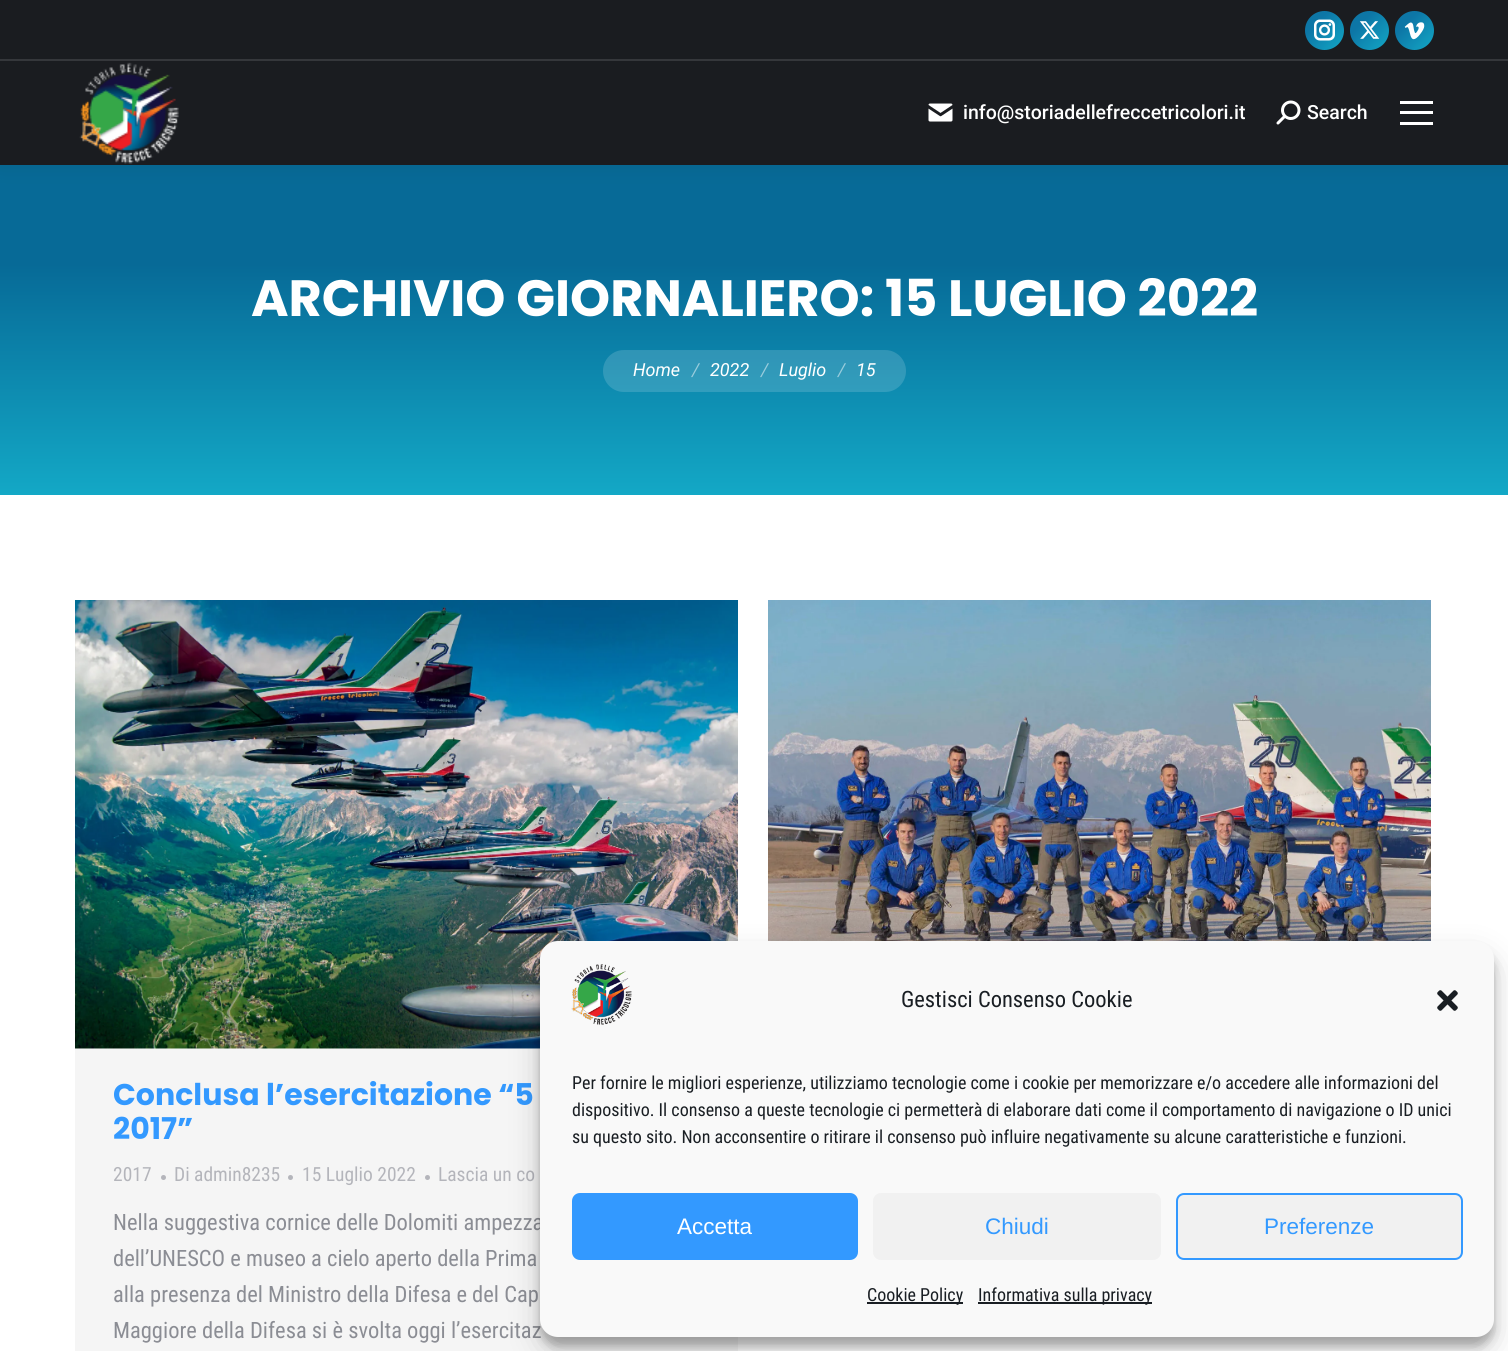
#include <cairo.h>
#include <math.h>
#include <stddef.h>

typedef struct { const char *family; double size; int italic, bold; unsigned color; } style_t;
static cairo_t *ctx;

static void ink(unsigned color) {
    cairo_set_source_rgb(ctx, (color >> 16) / 255.0, (color >> 8 & 255) / 255.0, (color & 255) / 255.0);
}

static void write(double x, double y, const char *s, const style_t *st) {
    cairo_select_font_face(ctx, st->family, st->italic ? CAIRO_FONT_SLANT_ITALIC : CAIRO_FONT_SLANT_NORMAL,
        st->bold ? CAIRO_FONT_WEIGHT_BOLD : CAIRO_FONT_WEIGHT_NORMAL);
    cairo_set_font_size(ctx, st->size);
    ink(st->color);
    cairo_move_to(ctx, x, y);
    cairo_show_text(ctx, s);
}

static void block(double x, double y, double w, double h, unsigned color) {
    ink(color);
    cairo_rectangle(ctx, x, y, w, h);
    cairo_fill(ctx);
}

static void round_path(double x, double y, double w, double h, double r) {
    cairo_new_sub_path(ctx);
    cairo_arc(ctx, x + w - r, y + h - r, r, 0, M_PI / 2);
    cairo_arc(ctx, x + r, y + h - r, r, M_PI / 2, M_PI);
    cairo_arc(ctx, x + r, y + r, r, M_PI, 1.5 * M_PI);
    cairo_arc(ctx, x + w - r, y + r, r, 1.5 * M_PI, 2 * M_PI);
    cairo_close_path(ctx);
}

static void blur_box(double x, double y, double w, double h, double r, double blur, double alpha) {
    cairo_push_group_with_content(ctx, CAIRO_CONTENT_ALPHA);
    cairo_set_operator(ctx, CAIRO_OPERATOR_SOURCE);
    for (int i = 15; i >= -15 && fmin(w, h) + blur * i / 3 > 0; i -= 2) {
        double e = blur * i / 6;
        cairo_set_source_rgba(ctx, 0, 0, 0, alpha * erfc((i - 1) / 8.5) / 2);
        round_path(x - e, y - e, w + 2 * e, h + 2 * e, fmax(0, fmin(r + e + blur * .6, fmin(w, h) / 2 + e)));
        cairo_fill(ctx);
    }
    cairo_pattern_t *soft = cairo_pop_group(ctx);
    cairo_mask(ctx, soft);
    cairo_pattern_destroy(soft);
}

static void paste(const char *path, double x, double y, double w, double h) {
    cairo_surface_t *image = cairo_image_surface_create_from_png(path);
    cairo_save(ctx);
    cairo_set_source_surface(ctx, image, x, y);
    cairo_rectangle(ctx, x, y, w, h);
    cairo_fill(ctx);
    cairo_restore(ctx);
    cairo_surface_destroy(image);
}

static const style_t s1 = {"Roboto Medium", 19.5, 0, 0, 0xffffff};
static const style_t s2 = {"Poppins", 51, 0, 1, 0xffffff};
static const style_t s3 = {"Roboto", 18, 1, 0, 0xffffff};
static const style_t s4 = {"Roboto", 18, 1, 0, 0x98ccdc};
static const style_t s5 = {"Poppins", 30, 0, 1, 0x3399ff};
static const style_t s6 = {"Roboto Condensed", 19.5, 0, 0, 0xb4b5bb};
static const style_t s7 = {"Roboto Condensed", 22.5, 0, 0, 0x8b8d94};
static const style_t s8 = {"Roboto Condensed", 22.5, 0, 0, 0x191e23};
static const style_t s9 = {"Roboto Condensed", 18, 0, 0, 0x191e23};
static const style_t s10 = {"Liberation Sans", 22.5, 0, 0, 0xffffff};
static const style_t s11 = {"Liberation Sans", 22.5, 0, 0, 0x3399ff};

int main(void) {
    cairo_surface_t *surface = cairo_image_surface_create(CAIRO_FORMAT_RGB24, 1508, 1351);
    ctx = cairo_create(surface);
    cairo_font_options_t *options = cairo_font_options_create();
    cairo_font_options_set_hint_metrics(options, CAIRO_HINT_METRICS_OFF);
    cairo_font_options_set_hint_style(options, CAIRO_HINT_STYLE_NONE);
    cairo_set_font_options(ctx, options);
    cairo_set_miter_limit(ctx, 4);
    cairo_pattern_t *gradient;
    ink(0xffffff);
    cairo_paint(ctx);
    gradient = cairo_pattern_create_linear(755, 165, 755, 495);
    cairo_pattern_add_color_stop_rgba(gradient, 0.3, 0.027, 0.416, 0.592, 1);
    cairo_pattern_add_color_stop_rgba(gradient, 1, 0.075, 0.659, 0.776, 1);
    cairo_set_source(ctx, gradient);
    cairo_pattern_destroy(gradient);
    cairo_rectangle(ctx, 0, 165, 1508, 330);
    cairo_fill(ctx);
    ink(0x000000);
    blur_box(-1, -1, 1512, 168, 0, 11, 0.07);
    block(0, 0, 1508, 165, 0x1a1c20);
    gradient = cairo_pattern_create_linear(1305, 11, 1344, 50);
    cairo_pattern_add_color_stop_rgba(gradient, 0.3, 0.051, 0.463, 0.651, 1);
    cairo_pattern_add_color_stop_rgba(gradient, 1, 0.075, 0.659, 0.776, 1);
    cairo_set_source(ctx, gradient);
    cairo_pattern_destroy(gradient);
    cairo_arc(ctx, 1324.5, 30.5, 19.5, 0, 2 * M_PI);
    cairo_fill(ctx);
    paste("pic1.png", 1314, 19, 21, 22);
    gradient = cairo_pattern_create_linear(1350, 11, 1389, 50);
    cairo_pattern_add_color_stop_rgba(gradient, 0.3, 0.051, 0.463, 0.651, 1);
    cairo_pattern_add_color_stop_rgba(gradient, 1, 0.075, 0.659, 0.776, 1);
    cairo_set_source(ctx, gradient);
    cairo_pattern_destroy(gradient);
    cairo_arc(ctx, 1369.5, 30.5, 19.5, 0, 2 * M_PI);
    cairo_fill(ctx);
    paste("pic2.png", 1359, 21, 21, 18);
    gradient = cairo_pattern_create_linear(1395, 11, 1434, 50);
    cairo_pattern_add_color_stop_rgba(gradient, 0.3, 0.051, 0.463, 0.651, 1);
    cairo_pattern_add_color_stop_rgba(gradient, 1, 0.075, 0.659, 0.776, 1);
    cairo_set_source(ctx, gradient);
    cairo_pattern_destroy(gradient);
    cairo_arc(ctx, 1414.5, 30.5, 19.5, 0, 2 * M_PI);
    cairo_fill(ctx);
    paste("pic3.png", 1404, 22, 21, 18);
    block(0, 59, 1508, 2, 0x35373b);
    paste("pic4.png", 79, 62, 100, 102);
    paste("pic5.png", 928, 103, 25, 19);
    write(963, 119, "info@storiadellefreccetricolori.it", &s1);
    paste("pic6.png", 1276, 100, 25, 25);
    write(1307, 119, "Search", &s1);
    block(1400, 101, 33, 3, 0xffffff);
    block(1400, 111, 33, 3, 0xffffff);
    block(1400, 122, 33, 3, 0xffffff);
    write(251, 316, "ARCHIVIO GIORNALIERO: 15 LUGLIO 2022", &s2);
    cairo_set_source_rgba(ctx, 1, 1, 1, 0.15);
    round_path(603, 350, 303, 42, 21);
    cairo_fill(ctx);
    write(633, 376, "Home", &s3);
    write(692, 376, "/", &s4);
    write(710, 376, "2022", &s3);
    write(761, 376, "/", &s4);
    write(779, 376, "Luglio", &s3);
    write(838, 376, "/", &s4);
    write(856, 376, "15", &s3);
    paste("pic7.png", 768, 600, 663, 341);
    block(75, 1048, 663, 303, 0xf5f5f5);
    paste("pic8.png", 75, 600, 663, 449);
    write(113, 1105, "Conclusa l’esercitazione “5", &s5);
    write(113, 1139, "2017”", &s5);
    write(113, 1181, "2017", &s6);
    cairo_new_path(ctx);
    cairo_arc(ctx, 163.5, 1177.5, 2.5, 0, 2 * M_PI);
    cairo_fill(ctx);
    write(174, 1181, "Di admin8235", &s6);
    cairo_new_path(ctx);
    cairo_arc(ctx, 290.5, 1177.5, 2.5, 0, 2 * M_PI);
    cairo_fill(ctx);
    write(302, 1181, "15 Luglio 2022", &s6);
    cairo_new_path(ctx);
    cairo_arc(ctx, 427.5, 1177.5, 2.5, 0, 2 * M_PI);
    cairo_fill(ctx);
    write(438, 1181, "Lascia un co", &s6);
    write(113, 1230, "Nella suggestiva cornice delle Dolomiti ampezza", &s7);
    write(113, 1266, "dell’UNESCO e museo a cielo aperto della Prima", &s7);
    write(113, 1302, "alla presenza del Ministro della Difesa e del Cap", &s7);
    write(113, 1338, "Maggiore della Difesa si è svolta oggi l’esercitaz", &s7);
    ink(0x000000);
    blur_box(540, 950, 954, 396, 18, 4.5, 0.23);
    blur_box(540, 956, 954, 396, 18, 15, 0.19);
    ink(0xf9f9f9);
    round_path(541, 942, 952, 394, 17);
    cairo_fill_preserve(ctx);
    cairo_stroke(ctx);
    paste("pic9.png", 571, 964, 61, 61);
    write(901, 1007, "Gestisci Consenso Cookie", &s8);
    paste("pic10.png", 1437, 990, 21, 21);
    write(572, 1089, "Per fornire le migliori esperienze, utilizziamo tecnologie come i cookie per memorizzare e/o accedere alle informazioni del", &s9);
    write(572, 1116, "dispositivo. Il consenso a queste tecnologie ci permetterà di elaborare dati come il comportamento di navigazione o ID unici", &s9);
    write(572, 1143, "su questo sito. Non acconsentire o ritirare il consenso può influire negativamente su alcune caratteristiche e funzioni.", &s9);
    ink(0x3399ff);
    round_path(573, 1194, 284, 65, 7);
    cairo_fill_preserve(ctx);
    cairo_stroke(ctx);
    write(677, 1234, "Accetta", &s10);
    ink(0xf1f1f1);
    round_path(873, 1193, 288, 67, 8);
    cairo_fill(ctx);
    write(985, 1234, "Chiudi", &s11);
    ink(0xf1f1f1);
    round_path(1177, 1194, 285, 65, 7);
    cairo_fill_preserve(ctx);
    ink(0x3399ff);
    cairo_stroke(ctx);
    write(1264, 1234, "Preferenze", &s11);
    block(867, 1302, 96, 2, 0x191e23);
    write(867, 1301, "Cookie Policy", &s9);
    block(978, 1302, 174, 2, 0x191e23);
    write(978, 1301, "Informativa sulla privacy", &s9);
    cairo_surface_write_to_png(surface, "screenshot.png");
    cairo_font_options_destroy(options);
    cairo_destroy(ctx);
    cairo_surface_destroy(surface);
    return 0;
}
